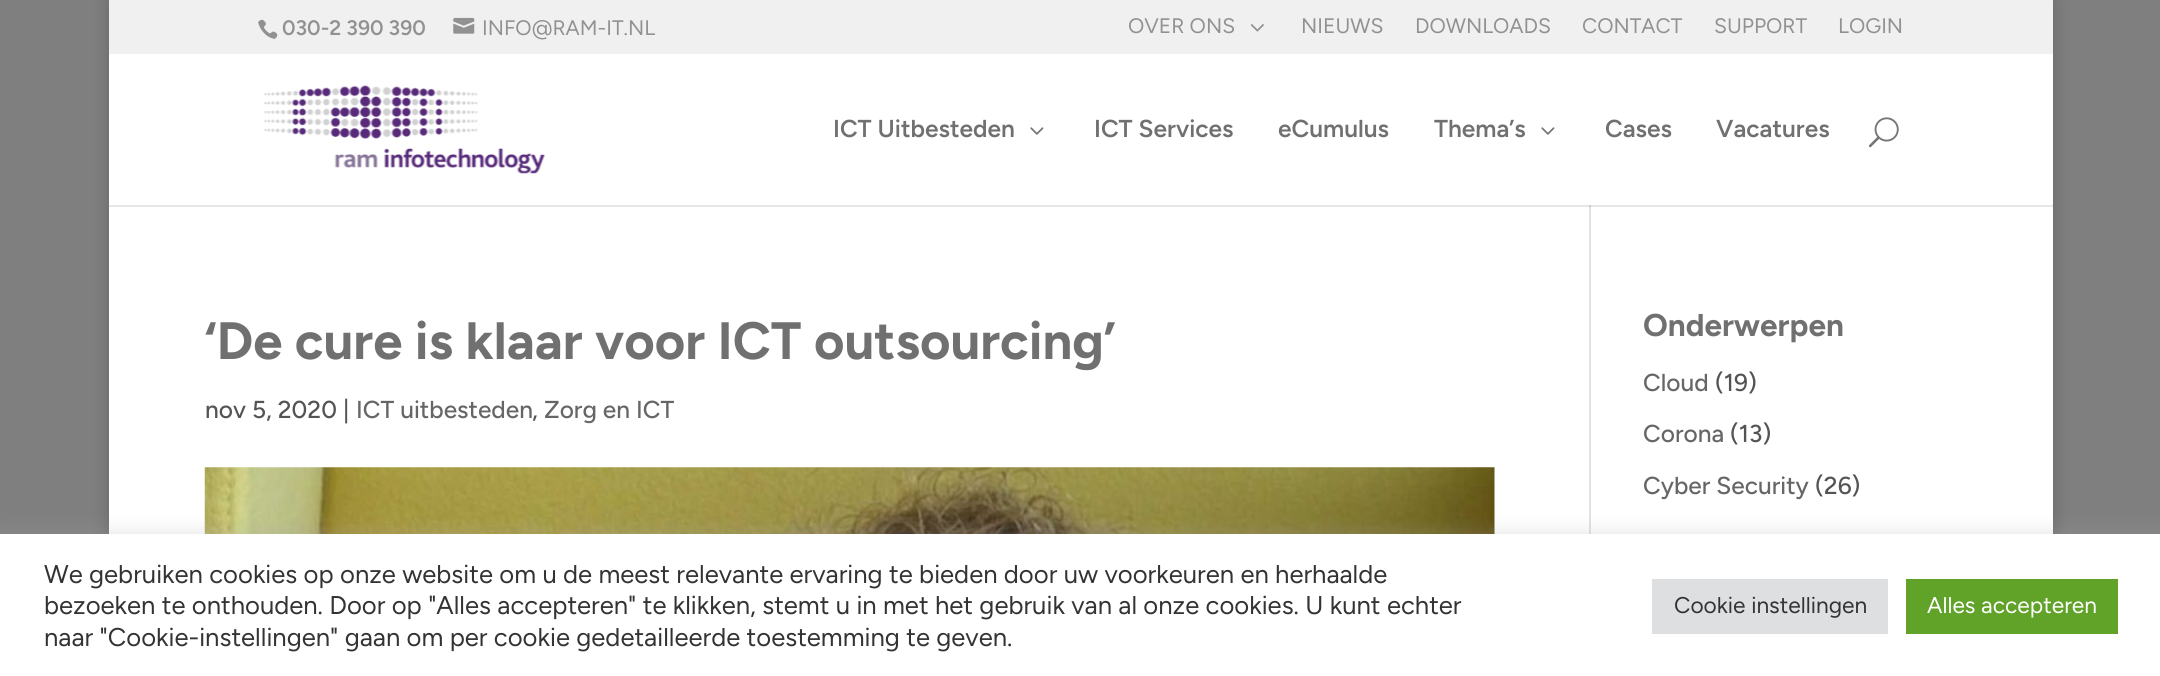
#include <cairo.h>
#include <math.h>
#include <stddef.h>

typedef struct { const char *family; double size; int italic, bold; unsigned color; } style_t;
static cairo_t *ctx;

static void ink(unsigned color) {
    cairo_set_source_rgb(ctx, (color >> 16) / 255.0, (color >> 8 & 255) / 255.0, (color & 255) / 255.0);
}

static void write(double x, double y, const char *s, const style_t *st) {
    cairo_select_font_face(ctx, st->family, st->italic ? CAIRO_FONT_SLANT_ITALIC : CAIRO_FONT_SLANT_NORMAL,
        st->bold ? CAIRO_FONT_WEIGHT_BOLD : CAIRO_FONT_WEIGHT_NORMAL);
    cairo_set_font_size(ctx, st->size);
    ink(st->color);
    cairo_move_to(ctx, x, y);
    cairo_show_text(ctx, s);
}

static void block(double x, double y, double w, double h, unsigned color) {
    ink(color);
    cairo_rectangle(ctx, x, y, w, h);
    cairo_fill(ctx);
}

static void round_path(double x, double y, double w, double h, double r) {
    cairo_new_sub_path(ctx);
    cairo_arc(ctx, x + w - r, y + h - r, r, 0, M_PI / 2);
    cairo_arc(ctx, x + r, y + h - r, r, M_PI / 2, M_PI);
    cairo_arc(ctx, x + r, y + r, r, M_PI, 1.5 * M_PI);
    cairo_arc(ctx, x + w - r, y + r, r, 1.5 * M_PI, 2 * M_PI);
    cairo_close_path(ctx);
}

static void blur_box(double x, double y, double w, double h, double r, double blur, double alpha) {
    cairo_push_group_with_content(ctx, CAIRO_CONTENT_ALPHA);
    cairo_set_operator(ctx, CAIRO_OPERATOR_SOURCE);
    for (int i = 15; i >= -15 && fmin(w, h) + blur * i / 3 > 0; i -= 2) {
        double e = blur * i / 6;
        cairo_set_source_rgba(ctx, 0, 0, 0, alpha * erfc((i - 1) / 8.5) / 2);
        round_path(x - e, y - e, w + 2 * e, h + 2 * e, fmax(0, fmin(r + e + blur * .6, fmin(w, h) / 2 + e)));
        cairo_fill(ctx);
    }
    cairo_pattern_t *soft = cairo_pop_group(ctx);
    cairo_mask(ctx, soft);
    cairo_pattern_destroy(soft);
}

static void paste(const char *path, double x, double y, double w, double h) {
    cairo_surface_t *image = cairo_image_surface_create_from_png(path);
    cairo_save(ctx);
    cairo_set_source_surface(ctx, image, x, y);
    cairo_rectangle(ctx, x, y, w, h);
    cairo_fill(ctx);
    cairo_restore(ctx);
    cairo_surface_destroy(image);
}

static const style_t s1 = {"Figtree SemiBold", 21, 0, 0, 0x919191};
static const style_t s2 = {"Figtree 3 Light", 21, 0, 0, 0x919191};
static const style_t s3 = {"Figtree SemiBold", 24.5, 0, 0, 0x707070};
static const style_t s4 = {"Figtree Light", 52.5, 0, 0, 0x707070};
static const style_t s5 = {"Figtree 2 Light", 24.5, 0, 0, 0x545454};
static const style_t s6 = {"Figtree 2 Light", 24.5, 0, 0, 0x666666};
static const style_t s7 = {"Figtree Light", 31.5, 0, 0, 0x707070};
static const style_t s8 = {"Figtree 3 Light", 25.67, 0, 0, 0x333333};
static const style_t s9 = {"Figtree 3 Light", 22.75, 0, 0, 0x333333};
static const style_t s10 = {"Figtree 3 Light", 22.75, 0, 0, 0xffffff};

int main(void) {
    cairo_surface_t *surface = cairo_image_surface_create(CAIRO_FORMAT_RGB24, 2160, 676);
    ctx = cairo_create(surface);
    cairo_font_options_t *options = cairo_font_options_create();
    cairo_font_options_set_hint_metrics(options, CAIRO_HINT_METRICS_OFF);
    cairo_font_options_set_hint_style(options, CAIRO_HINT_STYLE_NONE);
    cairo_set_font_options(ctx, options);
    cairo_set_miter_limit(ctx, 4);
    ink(0x7f7f7f);
    cairo_paint(ctx);
    ink(0x000000);
    blur_box(109, 0, 1944, 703, 0, 9, 0.2);
    block(109, 0, 1944, 54, 0xf0f0f1);
    paste("pic1.png", 258, 19, 20, 20);
    write(282, 35, "030-2 390 390", &s1);
    paste("pic2.png", 453, 17, 22, 17);
    write(482, 35, "INFO@RAM-IT.NL", &s2);
    write(1128, 33, "OVER ONS", &s2);
    paste("pic3.png", 1250, 24, 14, 8);
    write(1301, 33, "NIEUWS", &s2);
    write(1415, 33, "DOWNLOADS", &s2);
    write(1582, 33, "CONTACT", &s2);
    write(1714, 33, "SUPPORT", &s2);
    write(1838, 33, "LOGIN", &s2);
    block(109, 54, 1944, 480, 0xffffff);
    block(1589, 205, 2, 329, 0xe2e2e2);
    cairo_set_source_rgba(ctx, 0, 0, 0, 0.1);
    cairo_new_path(ctx);
    cairo_move_to(ctx, 109, 205);
    cairo_line_to(ctx, 109, 207);
    cairo_line_to(ctx, 2053, 207);
    cairo_line_to(ctx, 2053, 56);
    cairo_line_to(ctx, 2053, 205);
    cairo_close_path(ctx);
    cairo_fill(ctx);
    paste("pic4.png", 263, 85, 282, 89);
    write(833, 137, "ICT Uitbesteden", &s3);
    paste("pic5.png", 1030, 127, 14, 8);
    write(1094, 137, "ICT Services", &s3);
    write(1278, 137, "eCumulus", &s3);
    write(1434, 137, "Thema’s", &s3);
    paste("pic5.png", 1541, 127, 14, 8);
    write(1605, 137, "Cases", &s3);
    write(1716, 137, "Vacatures", &s3);
    paste("pic6.png", 1868, 117, 31, 31);
    write(205, 359, "‘De cure is klaar voor ICT outsourcing’", &s4);
    write(205, 418, "nov 5, 2020 |", &s5);
    write(356, 418, "ICT uitbesteden", &s6);
    write(532, 418, ",", &s5);
    write(544, 418, "Zorg en ICT", &s6);
    paste("pic7.png", 204, 467, 1291, 67);
    write(1643, 336, "Onderwerpen", &s7);
    write(1643, 391, "Cloud", &s6);
    write(1715, 391, "(19)", &s5);
    write(1643, 442, "Corona", &s6);
    write(1730, 442, "(13)", &s5);
    write(1643, 494, "Cyber Security", &s6);
    write(1815, 494, "(26)", &s5);
    ink(0xacabab);
    blur_box(0, 532, 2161, 144, 0, 9, 0.3);
    block(0, 534, 2160, 142, 0xffffff);
    write(44, 583, "We gebruiken cookies op onze website om u de meest relevante ervaring te bieden door uw voorkeuren en herhaalde", &s8);
    write(44, 614, "bezoeken te onthouden. Door op \"Alles accepteren\" te klikken, stemt u in met het gebruik van al onze cookies. U kunt echter", &s8);
    write(44, 646, "naar \"Cookie-instellingen\" gaan om per cookie gedetailleerde toestemming te geven.", &s8);
    block(1652, 579, 236, 55, 0xdedfe0);
    write(1674, 613, "Cookie instellingen", &s9);
    block(1906, 579, 212, 55, 0x61a229);
    write(1927, 613, "Alles accepteren", &s10);
    cairo_surface_write_to_png(surface, "screenshot.png");
    cairo_font_options_destroy(options);
    cairo_destroy(ctx);
    cairo_surface_destroy(surface);
    return 0;
}
